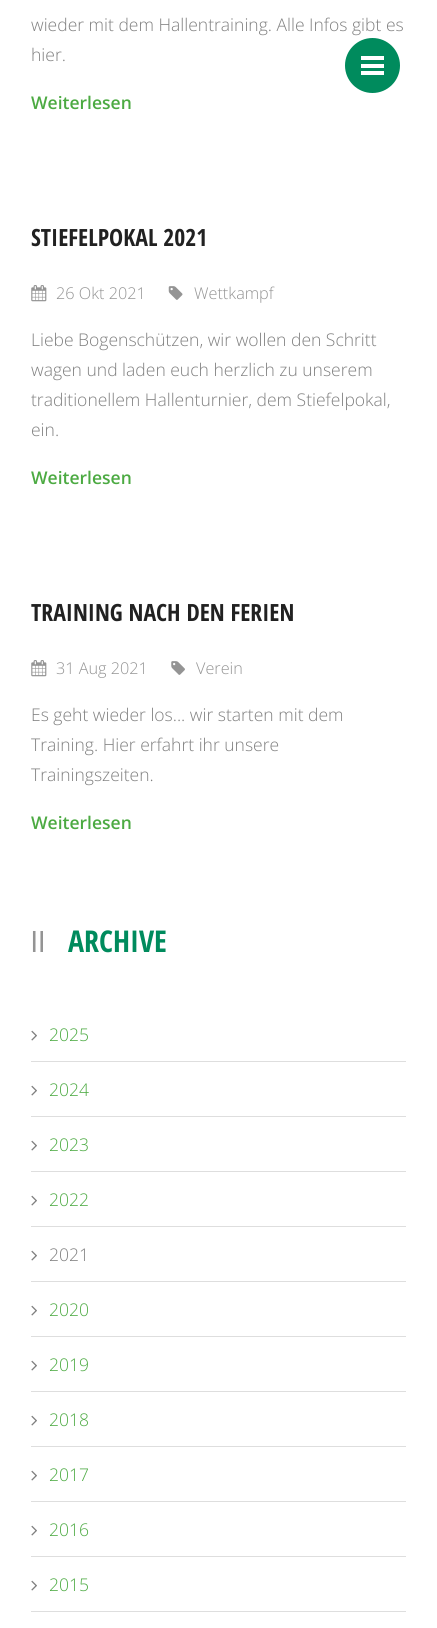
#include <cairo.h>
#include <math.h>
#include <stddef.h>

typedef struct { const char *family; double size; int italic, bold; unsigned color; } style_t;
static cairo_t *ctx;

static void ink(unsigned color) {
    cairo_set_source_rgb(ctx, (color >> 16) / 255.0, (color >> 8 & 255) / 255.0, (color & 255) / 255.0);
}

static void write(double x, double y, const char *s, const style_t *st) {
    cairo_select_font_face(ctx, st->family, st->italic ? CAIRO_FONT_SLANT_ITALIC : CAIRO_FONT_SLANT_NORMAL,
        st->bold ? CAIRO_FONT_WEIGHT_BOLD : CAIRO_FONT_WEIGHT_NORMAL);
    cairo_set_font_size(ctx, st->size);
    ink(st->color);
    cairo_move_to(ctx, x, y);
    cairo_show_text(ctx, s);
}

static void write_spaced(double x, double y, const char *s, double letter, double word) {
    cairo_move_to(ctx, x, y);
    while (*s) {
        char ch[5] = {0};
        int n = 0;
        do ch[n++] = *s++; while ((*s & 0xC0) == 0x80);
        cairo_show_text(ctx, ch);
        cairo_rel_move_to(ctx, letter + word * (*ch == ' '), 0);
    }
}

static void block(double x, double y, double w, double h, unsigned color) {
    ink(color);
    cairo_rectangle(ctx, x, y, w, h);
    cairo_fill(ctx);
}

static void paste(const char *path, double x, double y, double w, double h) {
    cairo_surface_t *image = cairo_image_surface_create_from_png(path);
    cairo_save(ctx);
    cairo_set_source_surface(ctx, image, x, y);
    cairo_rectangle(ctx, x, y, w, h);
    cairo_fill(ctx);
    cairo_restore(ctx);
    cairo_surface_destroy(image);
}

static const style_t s1 = {"Open Sans Light", 17.5, 0, 0, 0x808080};
static const style_t s2 = {"Open Sans SemiBold", 17.5, 0, 0, 0x4caa42};
static const style_t s3 = {"Open Sans Condensed", 23.75, 0, 1, 0x212121};
static const style_t s4 = {"Open Sans Light", 16.25, 0, 0, 0x949494};
static const style_t s5 = {"Open Sans Condensed", 30, 0, 1, 0x008b5d};
static const style_t s6 = {"Open Sans Light", 17.5, 0, 0, 0x4caa42};

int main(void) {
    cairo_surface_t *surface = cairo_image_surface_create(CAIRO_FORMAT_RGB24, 437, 1628);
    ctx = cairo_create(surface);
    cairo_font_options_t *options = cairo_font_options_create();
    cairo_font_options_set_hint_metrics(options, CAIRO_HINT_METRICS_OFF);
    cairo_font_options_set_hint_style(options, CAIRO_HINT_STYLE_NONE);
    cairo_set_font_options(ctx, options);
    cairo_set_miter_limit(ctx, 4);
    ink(0xffffff);
    cairo_paint(ctx);
    write(31, 31, "wieder mit dem Hallentraining. Alle Infos gibt es", &s1);
    write(31, 61, "hier.", &s1);
    write(31, 109, "Weiterlesen", &s2);
    write(31, 246, "STIEFELPOKAL 2021", &s3);
    paste("pic1.png", 31, 285, 16, 17);
    write(56, 299, "26 Okt 2021", &s4);
    paste("pic2.png", 168, 286, 15, 14);
    write(194, 299, "Wettkampf", &s4);
    write(31, 346, "Liebe Bogenschützen, wir wollen den Schritt", &s1);
    write(31, 376, "wagen und laden euch herzlich zu unserem", &s1);
    write(31, 406, "traditionellem Hallenturnier, dem Stiefelpokal,", &s1);
    write(31, 436, "ein.", &s1);
    write(31, 484, "Weiterlesen", &s2);
    write(31, 621, "TRAINING NACH DEN FERIEN", &s3);
    paste("pic1.png", 31, 660, 16, 17);
    write(56, 674, "31 Aug 2021", &s4);
    paste("pic3.png", 171, 661, 14, 14);
    write(196, 674, "Verein", &s4);
    write(31, 721, "Es geht wieder los... wir starten mit dem", &s1);
    write(31, 751, "Training. Hier erfahrt ihr unsere", &s1);
    write(31, 781, "Trainingszeiten.", &s1);
    write(31, 829, "Weiterlesen", &s2);
    cairo_select_font_face(ctx, "Liberation Sans", CAIRO_FONT_SLANT_NORMAL, CAIRO_FONT_WEIGHT_NORMAL);
    cairo_set_font_size(ctx, 29);
    ink(0x949494);
    write_spaced(31, 952, "ll", 1, 0);
    write(68, 952, "ARCHIVE", &s5);
    block(31, 1061, 375, 1, 0xdedede);
    paste("pic4.png", 31, 1030, 6, 11);
    write(49, 1041, "2025", &s6);
    block(31, 1116, 375, 1, 0xdedede);
    paste("pic4.png", 31, 1085, 6, 11);
    write(49, 1096, "2024", &s6);
    block(31, 1171, 375, 1, 0xdedede);
    paste("pic4.png", 31, 1140, 6, 11);
    write(49, 1151, "2023", &s6);
    block(31, 1226, 375, 1, 0xdedede);
    paste("pic4.png", 31, 1195, 6, 11);
    write(49, 1206, "2022", &s6);
    block(31, 1281, 375, 1, 0xdedede);
    paste("pic4.png", 31, 1250, 6, 11);
    write(49, 1261, "2021", &s1);
    block(31, 1336, 375, 1, 0xdedede);
    paste("pic4.png", 31, 1305, 6, 11);
    write(49, 1316, "2020", &s6);
    block(31, 1391, 375, 1, 0xdedede);
    paste("pic4.png", 31, 1360, 6, 11);
    write(49, 1371, "2019", &s6);
    block(31, 1446, 375, 1, 0xdedede);
    paste("pic4.png", 31, 1415, 6, 11);
    write(49, 1426, "2018", &s6);
    block(31, 1501, 375, 1, 0xdedede);
    paste("pic4.png", 31, 1470, 6, 11);
    write(49, 1481, "2017", &s6);
    block(31, 1556, 375, 1, 0xdedede);
    paste("pic4.png", 31, 1525, 6, 11);
    write(49, 1536, "2016", &s6);
    block(31, 1611, 375, 1, 0xdedede);
    paste("pic4.png", 31, 1580, 6, 11);
    write(49, 1591, "2015", &s6);
    ink(0x008b5d);
    cairo_new_path(ctx);
    cairo_arc(ctx, 372.5, 65.5, 27.5, 0, 2 * M_PI);
    cairo_fill(ctx);
    block(361, 64, 23, 4, 0xffffff);
    block(361, 56, 23, 4, 0xffffff);
    block(361, 71, 23, 4, 0xffffff);
    cairo_surface_write_to_png(surface, "screenshot.png");
    cairo_font_options_destroy(options);
    cairo_destroy(ctx);
    cairo_surface_destroy(surface);
    return 0;
}
